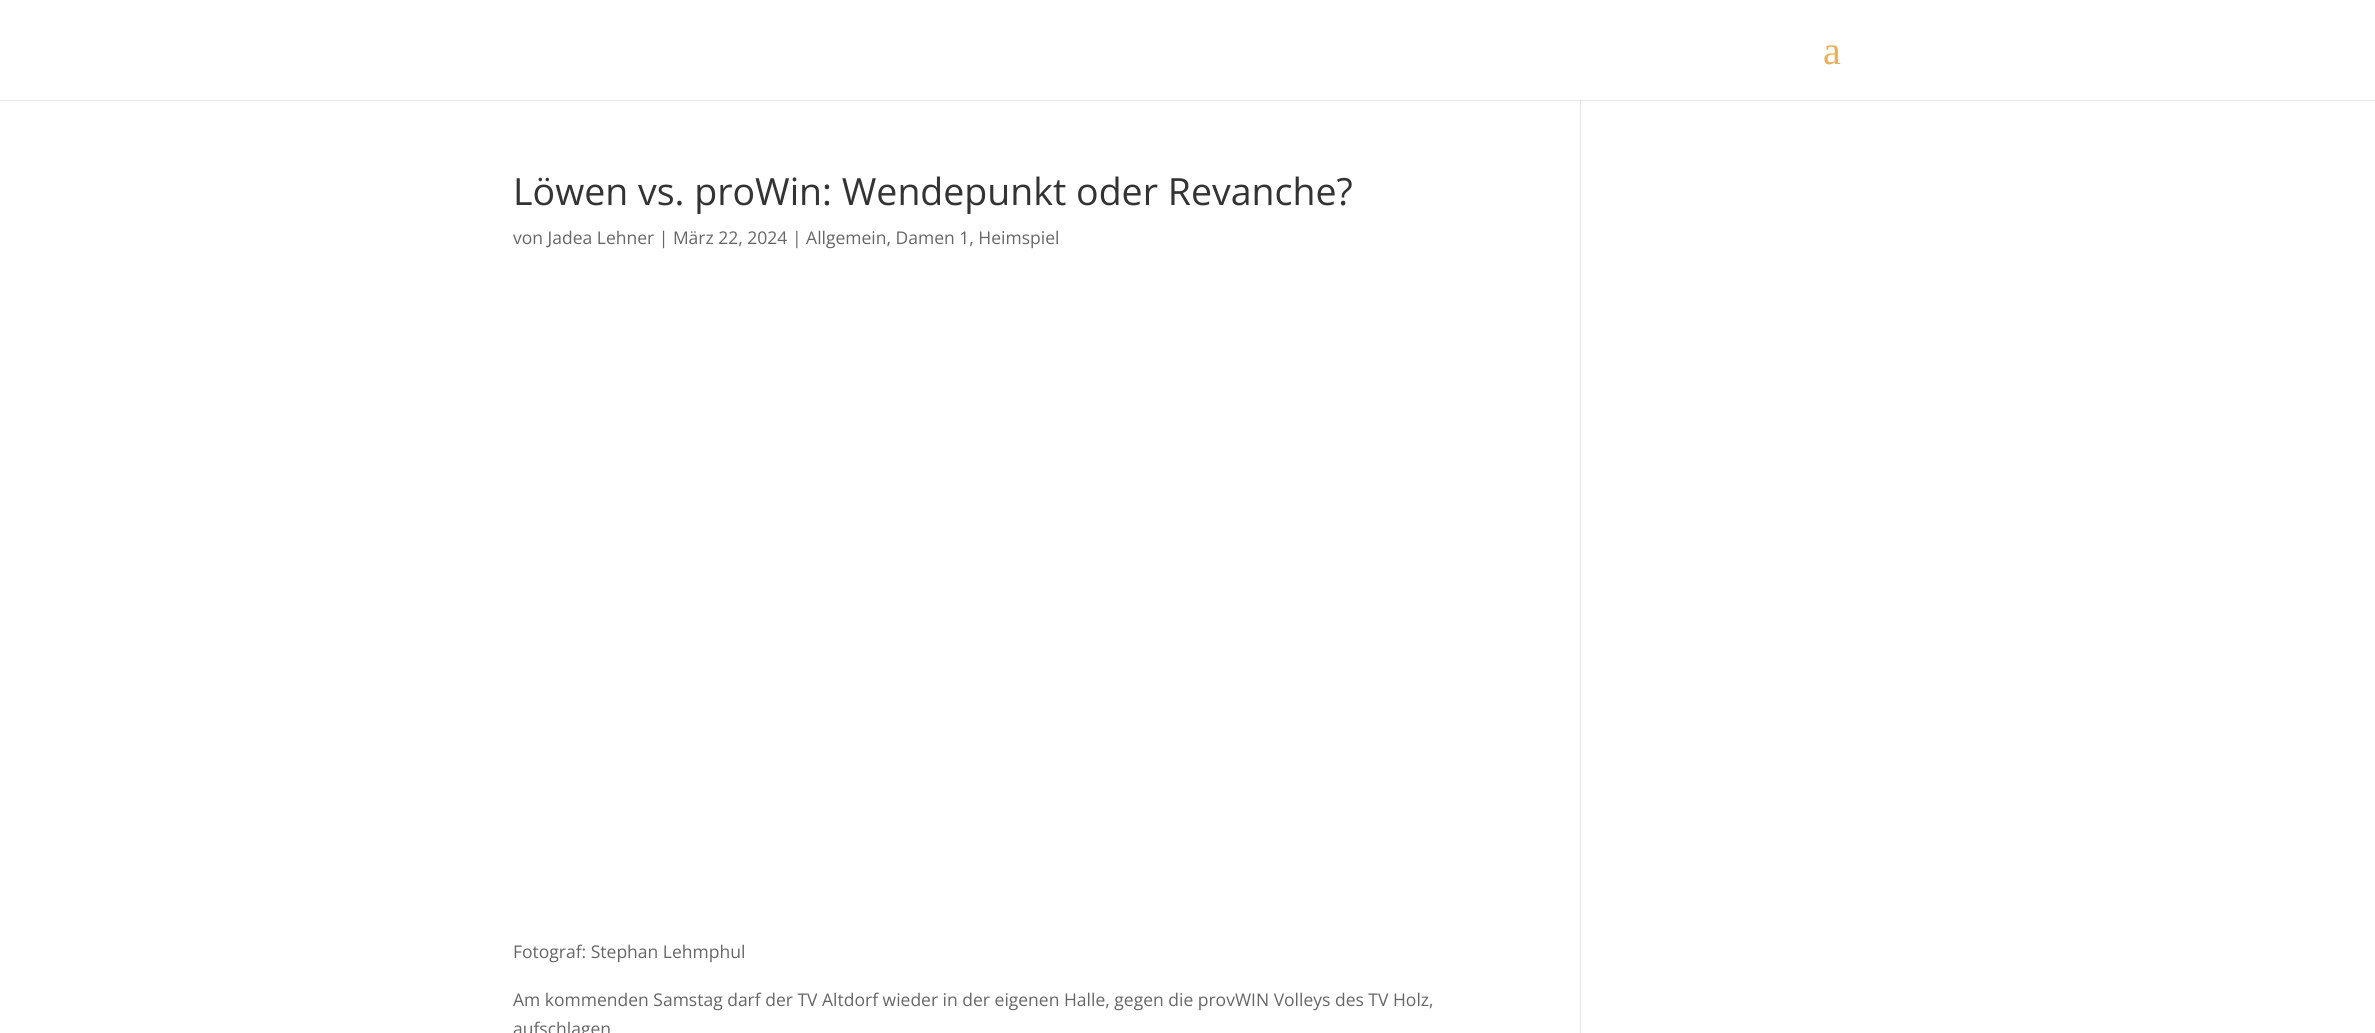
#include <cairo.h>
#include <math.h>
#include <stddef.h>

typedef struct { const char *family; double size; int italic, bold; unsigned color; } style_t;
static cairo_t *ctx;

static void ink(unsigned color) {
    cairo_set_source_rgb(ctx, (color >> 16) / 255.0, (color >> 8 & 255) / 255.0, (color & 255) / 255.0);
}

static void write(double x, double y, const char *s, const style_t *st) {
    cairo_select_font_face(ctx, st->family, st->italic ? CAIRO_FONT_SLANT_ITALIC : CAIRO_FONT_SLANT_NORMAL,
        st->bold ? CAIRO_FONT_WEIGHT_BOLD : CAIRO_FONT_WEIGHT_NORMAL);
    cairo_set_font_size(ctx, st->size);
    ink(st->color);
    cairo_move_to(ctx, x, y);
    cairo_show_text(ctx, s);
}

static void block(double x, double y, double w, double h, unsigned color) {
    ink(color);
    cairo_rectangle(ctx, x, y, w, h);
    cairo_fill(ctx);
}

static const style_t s1 = {"Liberation Serif", 40, 0, 0, 0xedb059};
static const style_t s2 = {"Open Sans", 37.5, 0, 0, 0x333333};
static const style_t s3 = {"Open Sans", 17.5, 0, 0, 0x666666};

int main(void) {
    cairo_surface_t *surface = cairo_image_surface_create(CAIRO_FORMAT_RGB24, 2375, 1033);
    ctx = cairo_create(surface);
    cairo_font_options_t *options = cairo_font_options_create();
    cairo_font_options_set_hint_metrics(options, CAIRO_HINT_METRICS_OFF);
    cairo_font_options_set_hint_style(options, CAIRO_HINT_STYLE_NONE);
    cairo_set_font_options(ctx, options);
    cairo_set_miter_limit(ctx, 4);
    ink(0xffffff);
    cairo_paint(ctx);
    block(0, 100, 2375, 1, 0xe6e6e6);
    write(1823, 64, "a", &s1);
    write(513, 205, "Löwen vs. proWin: Wendepunkt oder Revanche?", &s2);
    write(513, 244, "von Jadea Lehner | März 22, 2024 | Allgemein, Damen 1, Heimspiel", &s3);
    write(513, 958, "Fotograf: Stephan Lehmphul", &s3);
    write(513, 1006, "Am kommenden Samstag darf der TV Altdorf wieder in der eigenen Halle, gegen die provWIN Volleys des TV Holz,", &s3);
    write(513, 1035, "aufschlagen", &s3);
    block(1580, 100, 1, 933, 0xe2e2e2);
    block(1580, 100, 1, 1, 0xcbcbcb);
    cairo_surface_write_to_png(surface, "screenshot.png");
    cairo_font_options_destroy(options);
    cairo_destroy(ctx);
    cairo_surface_destroy(surface);
    return 0;
}
